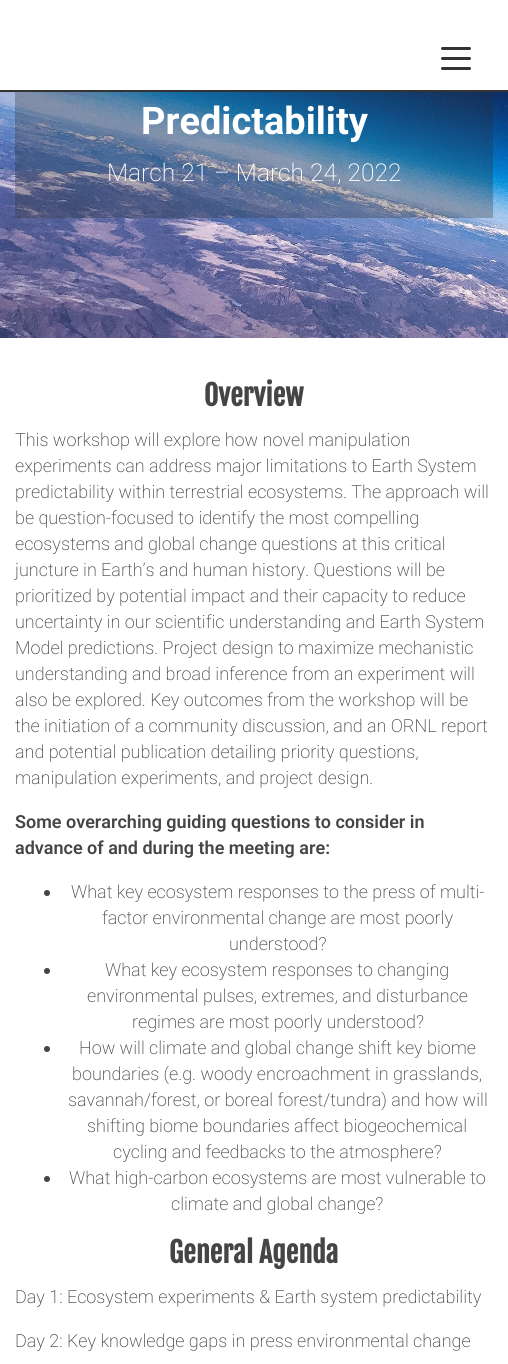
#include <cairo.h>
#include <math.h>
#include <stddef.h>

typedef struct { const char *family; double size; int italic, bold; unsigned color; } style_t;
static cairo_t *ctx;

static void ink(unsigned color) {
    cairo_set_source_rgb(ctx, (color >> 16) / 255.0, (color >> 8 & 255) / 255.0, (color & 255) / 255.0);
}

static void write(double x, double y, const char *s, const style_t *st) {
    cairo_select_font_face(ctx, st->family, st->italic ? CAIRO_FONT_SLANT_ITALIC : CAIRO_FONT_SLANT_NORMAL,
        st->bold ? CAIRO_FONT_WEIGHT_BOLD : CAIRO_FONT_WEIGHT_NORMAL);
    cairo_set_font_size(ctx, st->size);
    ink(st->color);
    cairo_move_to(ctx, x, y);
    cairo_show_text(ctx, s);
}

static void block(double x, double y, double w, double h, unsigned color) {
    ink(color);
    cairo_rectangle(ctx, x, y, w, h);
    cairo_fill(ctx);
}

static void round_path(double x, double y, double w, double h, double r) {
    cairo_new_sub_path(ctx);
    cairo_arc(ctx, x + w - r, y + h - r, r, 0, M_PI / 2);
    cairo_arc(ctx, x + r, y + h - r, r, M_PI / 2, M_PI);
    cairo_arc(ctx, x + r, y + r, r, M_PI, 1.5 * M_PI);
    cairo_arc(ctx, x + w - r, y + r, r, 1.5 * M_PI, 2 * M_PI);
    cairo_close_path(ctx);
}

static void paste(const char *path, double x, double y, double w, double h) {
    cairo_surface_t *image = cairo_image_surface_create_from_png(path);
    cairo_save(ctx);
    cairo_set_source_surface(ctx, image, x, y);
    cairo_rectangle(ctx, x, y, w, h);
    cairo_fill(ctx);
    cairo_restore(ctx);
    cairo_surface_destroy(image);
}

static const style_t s1 = {"Roboto", 38, 0, 1, 0xffffff};
static const style_t s2 = {"Roboto ExtraLight", 24.5, 0, 0, 0xffffff};
static const style_t s3 = {"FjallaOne", 28, 0, 1, 0x454545};
static const style_t s4 = {"Roboto ExtraLight", 18, 0, 0, 0x454545};
static const style_t s5 = {"Roboto SemiBold", 18, 0, 0, 0x454545};

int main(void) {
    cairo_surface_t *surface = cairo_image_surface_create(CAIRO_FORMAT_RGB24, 508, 1364);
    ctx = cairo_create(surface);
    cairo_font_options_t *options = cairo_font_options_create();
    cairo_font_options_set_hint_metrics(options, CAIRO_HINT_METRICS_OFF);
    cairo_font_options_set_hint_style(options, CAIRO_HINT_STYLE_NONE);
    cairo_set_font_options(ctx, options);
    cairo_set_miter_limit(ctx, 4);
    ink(0xffffff);
    cairo_paint(ctx);
    block(0, 90, 508, 2, 0x333333);
    round_path(441, 47, 30, 3, 1.5);
    cairo_fill(ctx);
    round_path(441, 57, 30, 3, 1.5);
    cairo_fill(ctx);
    round_path(441, 67, 30, 3, 1.5);
    cairo_fill(ctx);
    paste("pic1.png", 0, 92, 508, 246);
    cairo_set_source_rgba(ctx, 0.173, 0.173, 0.173, 0.3);
    cairo_rectangle(ctx, 15, 92, 478, 126);
    cairo_fill(ctx);
    write(141, 134, "Predictability", &s1);
    write(107, 181, "March 21 – March 24, 2022", &s2);
    write(204, 406, "Overview", &s3);
    write(15, 446, "This workshop will explore how novel manipulation", &s4);
    write(15, 472, "experiments can address major limitations to Earth System", &s4);
    write(15, 498, "predictability within terrestrial ecosystems. The approach will", &s4);
    write(15, 524, "be question-focused to identify the most compelling", &s4);
    write(15, 550, "ecosystems and global change questions at this critical", &s4);
    write(15, 576, "juncture in Earth’s and human history. Questions will be", &s4);
    write(15, 602, "prioritized by potential impact and their capacity to reduce", &s4);
    write(15, 628, "uncertainty in our scientific understanding and Earth System", &s4);
    write(15, 654, "Model predictions. Project design to maximize mechanistic", &s4);
    write(15, 680, "understanding and broad inference from an experiment will", &s4);
    write(15, 706, "also be explored. Key outcomes from the workshop will be", &s4);
    write(15, 732, "the initiation of a community discussion, and an ORNL report", &s4);
    write(15, 758, "and potential publication detailing priority questions,", &s4);
    write(15, 784, "manipulation experiments, and project design.", &s4);
    write(15, 828, "Some overarching guiding questions to consider in", &s5);
    write(15, 854, "advance of and during the meeting are:", &s5);
    cairo_new_path(ctx);
    cairo_arc(ctx, 47, 893, 3, 0, 2 * M_PI);
    cairo_fill(ctx);
    write(71, 898, "What key ecosystem responses to the press of multi-", &s4);
    write(102, 924, "factor environmental change are most poorly", &s4);
    write(229, 950, "understood?", &s4);
    cairo_new_path(ctx);
    cairo_arc(ctx, 47, 971, 3, 0, 2 * M_PI);
    cairo_fill(ctx);
    write(105, 976, "What key ecosystem responses to changing", &s4);
    write(87, 1002, "environmental pulses, extremes, and disturbance", &s4);
    write(132, 1028, "regimes are most poorly understood?", &s4);
    cairo_new_path(ctx);
    cairo_arc(ctx, 47, 1049, 3, 0, 2 * M_PI);
    cairo_fill(ctx);
    write(79, 1054, "How will climate and global change shift key biome", &s4);
    write(72, 1080, "boundaries (e.g. woody encroachment in grasslands,", &s4);
    write(68, 1106, "savannah/forest, or boreal forest/tundra) and how will", &s4);
    write(87, 1132, "shifting biome boundaries affect biogeochemical", &s4);
    write(113, 1158, "cycling and feedbacks to the atmosphere?", &s4);
    cairo_new_path(ctx);
    cairo_arc(ctx, 47, 1179, 3, 0, 2 * M_PI);
    cairo_fill(ctx);
    write(69, 1184, "What high-carbon ecosystems are most vulnerable to", &s4);
    write(171, 1210, "climate and global change?", &s4);
    write(169, 1263, "General Agenda", &s3);
    write(15, 1303, "Day 1: Ecosystem experiments & Earth system predictability", &s4);
    write(15, 1347, "Day 2: Key knowledge gaps in press environmental change", &s4);
    cairo_surface_write_to_png(surface, "screenshot.png");
    cairo_font_options_destroy(options);
    cairo_destroy(ctx);
    cairo_surface_destroy(surface);
    return 0;
}
